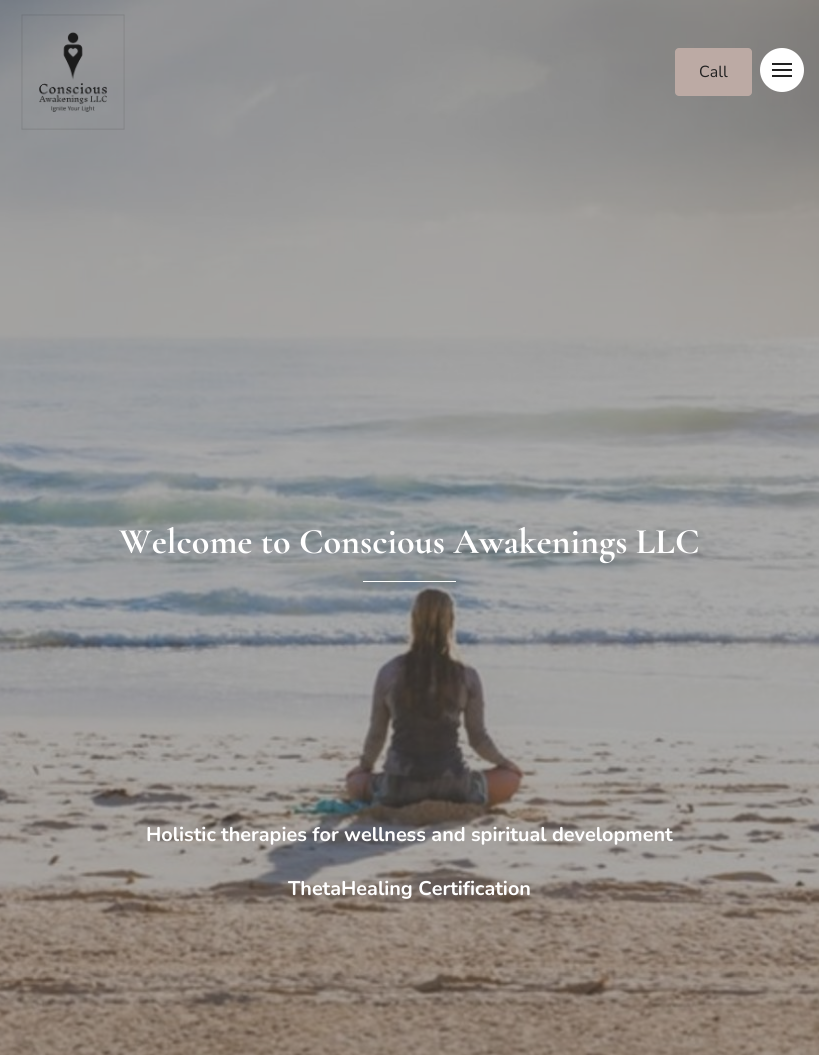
#include <cairo.h>
#include <math.h>
#include <stddef.h>

typedef struct { const char *family; double size; int italic, bold; unsigned color; } style_t;
static cairo_t *ctx;

static void ink(unsigned color) {
    cairo_set_source_rgb(ctx, (color >> 16) / 255.0, (color >> 8 & 255) / 255.0, (color & 255) / 255.0);
}

static void write(double x, double y, const char *s, const style_t *st) {
    cairo_select_font_face(ctx, st->family, st->italic ? CAIRO_FONT_SLANT_ITALIC : CAIRO_FONT_SLANT_NORMAL,
        st->bold ? CAIRO_FONT_WEIGHT_BOLD : CAIRO_FONT_WEIGHT_NORMAL);
    cairo_set_font_size(ctx, st->size);
    ink(st->color);
    cairo_move_to(ctx, x, y);
    cairo_show_text(ctx, s);
}

static void block(double x, double y, double w, double h, unsigned color) {
    ink(color);
    cairo_rectangle(ctx, x, y, w, h);
    cairo_fill(ctx);
}

static void round_path(double x, double y, double w, double h, double r) {
    cairo_new_sub_path(ctx);
    cairo_arc(ctx, x + w - r, y + h - r, r, 0, M_PI / 2);
    cairo_arc(ctx, x + r, y + h - r, r, M_PI / 2, M_PI);
    cairo_arc(ctx, x + r, y + r, r, M_PI, 1.5 * M_PI);
    cairo_arc(ctx, x + w - r, y + r, r, 1.5 * M_PI, 2 * M_PI);
    cairo_close_path(ctx);
}

static void paste(const char *path, double x, double y, double w, double h) {
    cairo_surface_t *image = cairo_image_surface_create_from_png(path);
    cairo_save(ctx);
    cairo_set_source_surface(ctx, image, x, y);
    cairo_rectangle(ctx, x, y, w, h);
    cairo_fill(ctx);
    cairo_restore(ctx);
    cairo_surface_destroy(image);
}

static const style_t s1 = {"Nunito", 16, 0, 0, 0x212121};
static const style_t s2 = {"Cormorant Garamond", 36, 0, 1, 0xffffff};
static const style_t s3 = {"Nunito", 19.8, 0, 1, 0xffffff};

int main(void) {
    cairo_surface_t *surface = cairo_image_surface_create(CAIRO_FORMAT_RGB24, 819, 1055);
    ctx = cairo_create(surface);
    cairo_font_options_t *options = cairo_font_options_create();
    cairo_font_options_set_hint_metrics(options, CAIRO_HINT_METRICS_OFF);
    cairo_font_options_set_hint_style(options, CAIRO_HINT_STYLE_NONE);
    cairo_set_font_options(ctx, options);
    cairo_set_miter_limit(ctx, 4);
    ink(0x505050);
    cairo_paint(ctx);
    paste("pic2.png", 0, 0, 819, 1055);
    paste("pic1.png", 21, 14, 104, 116);
    ink(0xbcaaa4);
    round_path(675, 48, 77, 48, 4);
    cairo_fill(ctx);
    write(699, 77, "Call", &s1);
    ink(0xffffff);
    cairo_new_path(ctx);
    cairo_arc(ctx, 782, 70, 22, 0, 2 * M_PI);
    cairo_fill(ctx);
    block(772, 63, 20, 2, 0x212121);
    block(772, 69, 20, 2, 0x212121);
    block(772, 75, 20, 2, 0x212121);
    write(119, 553, "Welcome to Conscious Awakenings LLC", &s2);
    block(363, 581, 93, 1, 0xffffff);
    write(146, 841, "Holistic therapies for wellness and spiritual development", &s3);
    write(288, 895, "ThetaHealing Certification", &s3);
    cairo_surface_write_to_png(surface, "screenshot.png");
    cairo_font_options_destroy(options);
    cairo_destroy(ctx);
    cairo_surface_destroy(surface);
    return 0;
}
